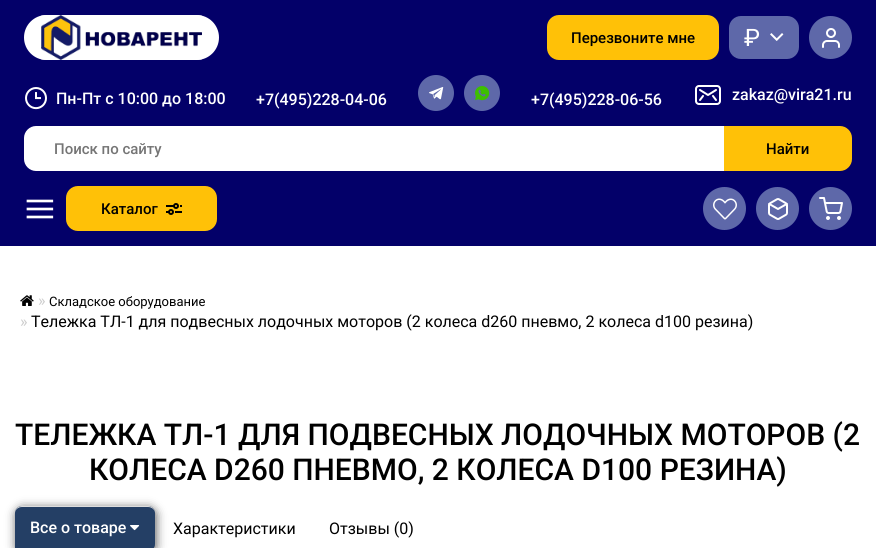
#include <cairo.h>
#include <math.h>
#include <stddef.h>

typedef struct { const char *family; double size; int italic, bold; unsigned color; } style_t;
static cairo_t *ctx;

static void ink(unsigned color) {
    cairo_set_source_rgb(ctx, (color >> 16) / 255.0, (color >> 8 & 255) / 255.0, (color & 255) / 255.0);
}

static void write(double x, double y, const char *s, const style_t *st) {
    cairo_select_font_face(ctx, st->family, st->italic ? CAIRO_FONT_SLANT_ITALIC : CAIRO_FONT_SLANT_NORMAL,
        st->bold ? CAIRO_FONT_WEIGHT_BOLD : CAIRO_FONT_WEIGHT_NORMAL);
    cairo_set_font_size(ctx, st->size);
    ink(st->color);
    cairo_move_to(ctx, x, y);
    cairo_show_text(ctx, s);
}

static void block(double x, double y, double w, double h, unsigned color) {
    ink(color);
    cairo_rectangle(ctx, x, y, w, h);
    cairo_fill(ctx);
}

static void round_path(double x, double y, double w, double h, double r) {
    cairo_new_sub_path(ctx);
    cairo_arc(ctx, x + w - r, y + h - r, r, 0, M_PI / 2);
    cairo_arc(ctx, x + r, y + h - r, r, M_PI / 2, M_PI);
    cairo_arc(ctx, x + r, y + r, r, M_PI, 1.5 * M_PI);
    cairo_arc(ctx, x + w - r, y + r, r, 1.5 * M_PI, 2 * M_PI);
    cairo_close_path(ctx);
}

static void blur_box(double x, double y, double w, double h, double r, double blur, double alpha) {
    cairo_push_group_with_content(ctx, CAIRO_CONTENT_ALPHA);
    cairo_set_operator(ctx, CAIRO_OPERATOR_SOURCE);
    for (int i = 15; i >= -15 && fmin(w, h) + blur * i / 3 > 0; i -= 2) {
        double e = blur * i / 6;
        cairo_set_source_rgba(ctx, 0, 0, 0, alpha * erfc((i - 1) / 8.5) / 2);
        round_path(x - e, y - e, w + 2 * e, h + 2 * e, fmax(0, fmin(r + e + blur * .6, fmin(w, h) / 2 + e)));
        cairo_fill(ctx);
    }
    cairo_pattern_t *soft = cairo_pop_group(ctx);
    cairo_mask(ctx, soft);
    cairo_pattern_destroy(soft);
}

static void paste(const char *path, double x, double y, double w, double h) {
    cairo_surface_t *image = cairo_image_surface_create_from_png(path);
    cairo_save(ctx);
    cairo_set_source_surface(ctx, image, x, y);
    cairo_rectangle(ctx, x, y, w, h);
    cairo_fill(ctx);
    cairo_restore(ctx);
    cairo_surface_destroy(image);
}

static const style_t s1 = {"Roboto Medium", 15, 0, 0, 0x000000};
static const style_t s2 = {"Roboto", 24, 0, 0, 0xffffff};
static const style_t s3 = {"Roboto Medium", 16, 0, 0, 0xffffff};
static const style_t s4 = {"Roboto Medium", 15, 0, 0, 0x757575};
static const style_t s5 = {"Roboto", 16, 0, 0, 0xcccccc};
static const style_t s6 = {"Roboto", 13, 0, 0, 0x000000};
static const style_t s7 = {"Roboto", 16, 0, 0, 0x000000};
static const style_t s8 = {"Roboto Medium", 30, 0, 0, 0x000000};

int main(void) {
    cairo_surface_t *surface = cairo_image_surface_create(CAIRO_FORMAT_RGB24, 876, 548);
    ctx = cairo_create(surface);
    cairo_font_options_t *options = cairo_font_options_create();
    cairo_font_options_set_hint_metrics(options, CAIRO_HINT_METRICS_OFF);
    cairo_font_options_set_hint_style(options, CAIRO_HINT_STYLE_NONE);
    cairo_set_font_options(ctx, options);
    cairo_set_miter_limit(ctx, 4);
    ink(0xffffff);
    cairo_paint(ctx);
    block(0, 0, 876, 246, 0x030069);
    ink(0xffffff);
    round_path(24, 15, 195, 45, 22.5);
    cairo_fill(ctx);
    paste("pic1.png", 41, 15, 161, 45);
    ink(0xffc107);
    round_path(547, 15, 172, 45, 12);
    cairo_fill(ctx);
    write(571, 43, "Перезвоните мне", &s1);
    ink(0x5e68a9);
    round_path(729, 16, 70, 43, 12);
    cairo_fill(ctx);
    write(744, 46, "₽", &s2);
    paste("pic2.png", 770, 33, 14, 8);
    ink(0x5e68a9);
    cairo_arc(ctx, 830.5, 37.5, 21.5, 0, 2 * M_PI);
    cairo_fill(ctx);
    paste("pic3.png", 822, 28, 18, 20);
    paste("pic4.png", 25, 87, 22, 23);
    write(56, 104, "Пн-Пт с 10:00 до 18:00", &s3);
    write(256, 105, "+7(495)228-04-06", &s3);
    ink(0x5e68a9);
    cairo_new_path(ctx);
    cairo_arc(ctx, 436, 93, 18, 0, 2 * M_PI);
    cairo_fill(ctx);
    paste("pic5.png", 429, 87, 15, 13);
    cairo_arc(ctx, 482, 93, 18, 0, 2 * M_PI);
    cairo_fill(ctx);
    paste("pic6.png", 475, 86, 15, 15);
    write(531, 105, "+7(495)228-06-56", &s3);
    paste("pic7.png", 695, 85, 26, 20);
    write(732, 100, "zakaz@vira21.ru", &s3);
    cairo_new_path(ctx);
    cairo_move_to(ctx, 36, 126);
    cairo_line_to(ctx, 724, 126);
    cairo_line_to(ctx, 724, 171);
    cairo_line_to(ctx, 36, 171);
    cairo_curve_to(ctx, 29.5, 171, 24, 165.5, 24, 159);
    cairo_line_to(ctx, 24, 138);
    cairo_curve_to(ctx, 24, 131.5, 29.5, 126, 36, 126);
    cairo_close_path(ctx);
    cairo_fill(ctx);
    write(54, 154, "Поиск по сайту", &s4);
    ink(0xffc107);
    cairo_new_path(ctx);
    cairo_move_to(ctx, 724, 126);
    cairo_line_to(ctx, 840, 126);
    cairo_curve_to(ctx, 846.5, 126, 852, 131.5, 852, 138);
    cairo_line_to(ctx, 852, 159);
    cairo_curve_to(ctx, 852, 165.5, 846.5, 171, 840, 171);
    cairo_line_to(ctx, 724, 171);
    cairo_close_path(ctx);
    cairo_fill(ctx);
    write(766, 154, "Найти", &s1);
    paste("pic8.png", 26, 199, 28, 20);
    ink(0xffc107);
    round_path(66, 186, 151, 45, 12);
    cairo_fill(ctx);
    write(101, 214, "Каталог", &s1);
    paste("pic9.png", 166, 203, 16, 12);
    ink(0x5e68a9);
    cairo_arc(ctx, 724.5, 208.5, 21.5, 0, 2 * M_PI);
    cairo_fill(ctx);
    paste("pic10.png", 713, 198, 24, 22);
    cairo_arc(ctx, 777.5, 208.5, 21.5, 0, 2 * M_PI);
    cairo_fill(ctx);
    paste("pic11.png", 768, 198, 20, 22);
    cairo_arc(ctx, 830.5, 208.5, 21.5, 0, 2 * M_PI);
    cairo_fill(ctx);
    paste("pic12.png", 819, 197, 24, 23);
    paste("pic13.png", 20, 295, 14, 11);
    write(38, 306, "»", &s5);
    write(49, 306, "Складское оборудование", &s6);
    write(20, 327, "»", &s5);
    write(31, 327, "Тележка ТЛ-1 для подвесных лодочных моторов (2 колеса d260 пневмо, 2 колеса d100 резина)", &s7);
    write(15, 445, "ТЕЛЕЖКА ТЛ-1 ДЛЯ ПОДВЕСНЫХ ЛОДОЧНЫХ МОТОРОВ (2", &s8);
    write(89, 480, "КОЛЕСА D260 ПНЕВМО, 2 КОЛЕСА D100 РЕЗИНА)", &s8);
    ink(0x555555);
    blur_box(16, 508, 140, 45, 7, 5, 1);
    ink(0x243f65);
    cairo_new_path(ctx);
    cairo_move_to(ctx, 22, 506);
    cairo_line_to(ctx, 148, 506);
    cairo_curve_to(ctx, 152, 506, 155, 509, 155, 513);
    cairo_line_to(ctx, 155, 544);
    cairo_curve_to(ctx, 155, 548, 152, 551, 148, 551);
    cairo_line_to(ctx, 15, 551);
    cairo_line_to(ctx, 15, 513);
    cairo_curve_to(ctx, 15, 509, 18, 506, 22, 506);
    cairo_close_path(ctx);
    cairo_fill(ctx);
    ink(0xdddddd);
    cairo_new_path(ctx);
    cairo_move_to(ctx, 22, 506);
    cairo_curve_to(ctx, 18, 506, 15, 509, 15, 513);
    cairo_curve_to(ctx, 15, 510, 18, 507, 22, 507);
    cairo_line_to(ctx, 148, 507);
    cairo_curve_to(ctx, 152, 507, 155, 510, 155, 513);
    cairo_curve_to(ctx, 155, 509, 152, 506, 148, 506);
    cairo_close_path(ctx);
    cairo_fill(ctx);
    write(30, 533, "Все о товаре", &s3);
    paste("pic14.png", 130, 525, 10, 6);
    write(173, 534, "Характеристики", &s7);
    write(329, 534, "Отзывы (0)", &s7);
    cairo_surface_write_to_png(surface, "screenshot.png");
    cairo_font_options_destroy(options);
    cairo_destroy(ctx);
    cairo_surface_destroy(surface);
    return 0;
}
